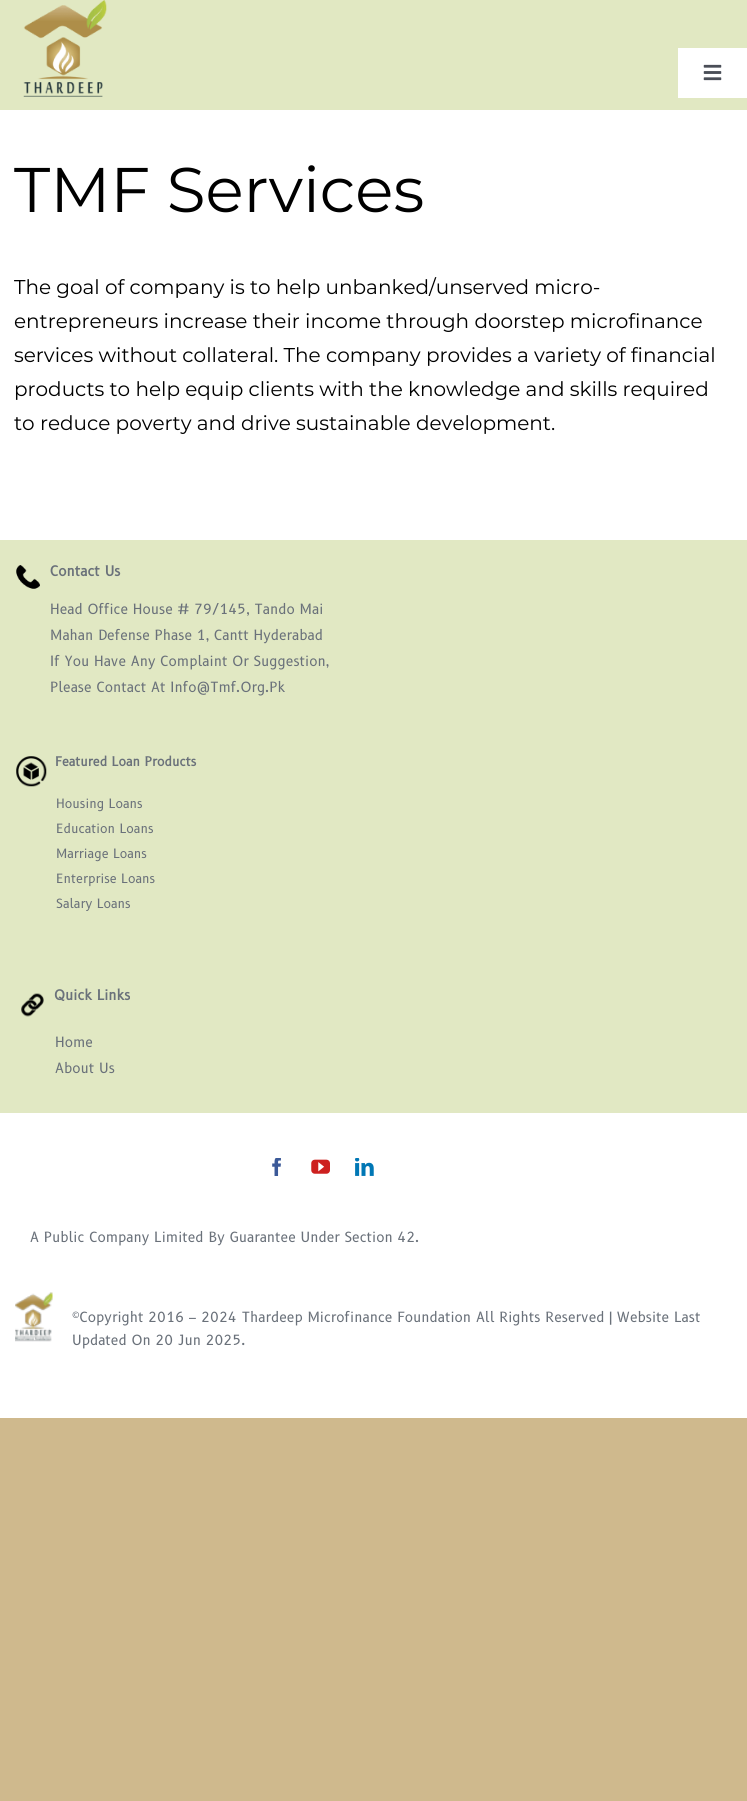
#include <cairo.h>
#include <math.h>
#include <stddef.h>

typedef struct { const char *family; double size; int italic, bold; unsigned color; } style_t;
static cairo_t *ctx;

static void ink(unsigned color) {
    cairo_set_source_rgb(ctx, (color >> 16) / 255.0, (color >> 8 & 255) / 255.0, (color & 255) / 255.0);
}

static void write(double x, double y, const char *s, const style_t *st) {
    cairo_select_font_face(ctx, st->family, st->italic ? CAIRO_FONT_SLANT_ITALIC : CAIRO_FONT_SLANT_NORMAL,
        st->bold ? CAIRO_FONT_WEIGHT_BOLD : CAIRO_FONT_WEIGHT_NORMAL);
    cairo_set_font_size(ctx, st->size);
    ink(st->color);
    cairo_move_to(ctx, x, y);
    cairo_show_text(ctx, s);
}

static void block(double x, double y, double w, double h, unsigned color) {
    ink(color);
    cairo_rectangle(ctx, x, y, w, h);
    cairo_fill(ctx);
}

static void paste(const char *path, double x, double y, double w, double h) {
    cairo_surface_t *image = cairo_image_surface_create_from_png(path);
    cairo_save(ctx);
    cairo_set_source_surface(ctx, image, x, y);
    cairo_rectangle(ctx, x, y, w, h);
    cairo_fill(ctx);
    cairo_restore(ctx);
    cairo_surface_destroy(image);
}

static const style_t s1 = {"Montserrat", 63, 0, 0, 0x000000};
static const style_t s2 = {"Montserrat", 20, 0, 0, 0x000000};
static const style_t s3 = {"B612", 13.75, 0, 1, 0x6a717a};
static const style_t s4 = {"B612", 13.75, 0, 0, 0x6a717a};
static const style_t s5 = {"B612", 12.5, 0, 1, 0x6a717a};
static const style_t s6 = {"B612", 12.5, 0, 0, 0x6a717a};

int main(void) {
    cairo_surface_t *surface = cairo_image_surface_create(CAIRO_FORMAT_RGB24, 747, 1801);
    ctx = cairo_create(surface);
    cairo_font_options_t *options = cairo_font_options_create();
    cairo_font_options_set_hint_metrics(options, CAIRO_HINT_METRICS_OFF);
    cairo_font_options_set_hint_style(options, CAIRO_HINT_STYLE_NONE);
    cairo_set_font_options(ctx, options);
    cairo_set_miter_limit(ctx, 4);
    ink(0xcfb98d);
    cairo_paint(ctx);
    block(0, 110, 747, 1308, 0xffffff);
    block(0, 0, 747, 110, 0xe1e8c2);
    paste("pic1.png", 23, 0, 84, 97);
    block(678, 48, 69, 50, 0xffffff);
    paste("pic2.png", 703, 64, 19, 17);
    write(14, 212, "TMF Services", &s1);
    write(14, 294, "The goal of company is to help unbanked/unserved micro-", &s2);
    write(14, 328, "entrepreneurs increase their income through doorstep microfinance", &s2);
    write(14, 362, "services without collateral. The company provides a variety of financial", &s2);
    write(14, 396, "products to help equip clients with the knowledge and skills required", &s2);
    write(14, 430, "to reduce poverty and drive sustainable development.", &s2);
    block(0, 540, 747, 573, 0xe1e8c3);
    paste("pic3.png", 16, 565, 24, 24);
    write(50, 576, "Contact Us", &s3);
    write(50, 614, "Head Office House # 79/145, Tando Mai", &s4);
    write(50, 640, "Mahan Defense Phase 1, Cantt Hyderabad", &s4);
    write(50, 666, "If You Have Any Complaint Or Suggestion,", &s4);
    write(50, 692, "Please Contact At Info@Tmf.Org.Pk", &s4);
    paste("pic4.png", 16, 756, 31, 31);
    write(55, 766, "Featured Loan Products", &s5);
    write(56, 808, "Housing Loans", &s6);
    write(56, 833, "Education Loans", &s6);
    write(56, 858, "Marriage Loans", &s6);
    write(56, 883, "Enterprise Loans", &s6);
    write(56, 908, "Salary Loans", &s6);
    paste("pic5.png", 21, 993, 23, 24);
    write(54, 1000, "Quick Links", &s3);
    write(55, 1047, "Home", &s4);
    write(55, 1073, "About Us", &s4);
    paste("pic6.png", 272, 1158, 9, 18);
    paste("pic7.png", 311, 1159, 19, 15);
    paste("pic8.png", 355, 1158, 19, 18);
    write(30, 1242, "A Public Company Limited By Guarantee Under Section 42.", &s4);
    paste("pic9.png", 15, 1292, 38, 50);
    write(72, 1322, "©Copyright 2016 – 2024 Thardeep Microfinance Foundation All Rights Reserved | Website Last", &s4);
    write(72, 1345, "Updated On 20 Jun 2025.", &s4);
    cairo_surface_write_to_png(surface, "screenshot.png");
    cairo_font_options_destroy(options);
    cairo_destroy(ctx);
    cairo_surface_destroy(surface);
    return 0;
}
